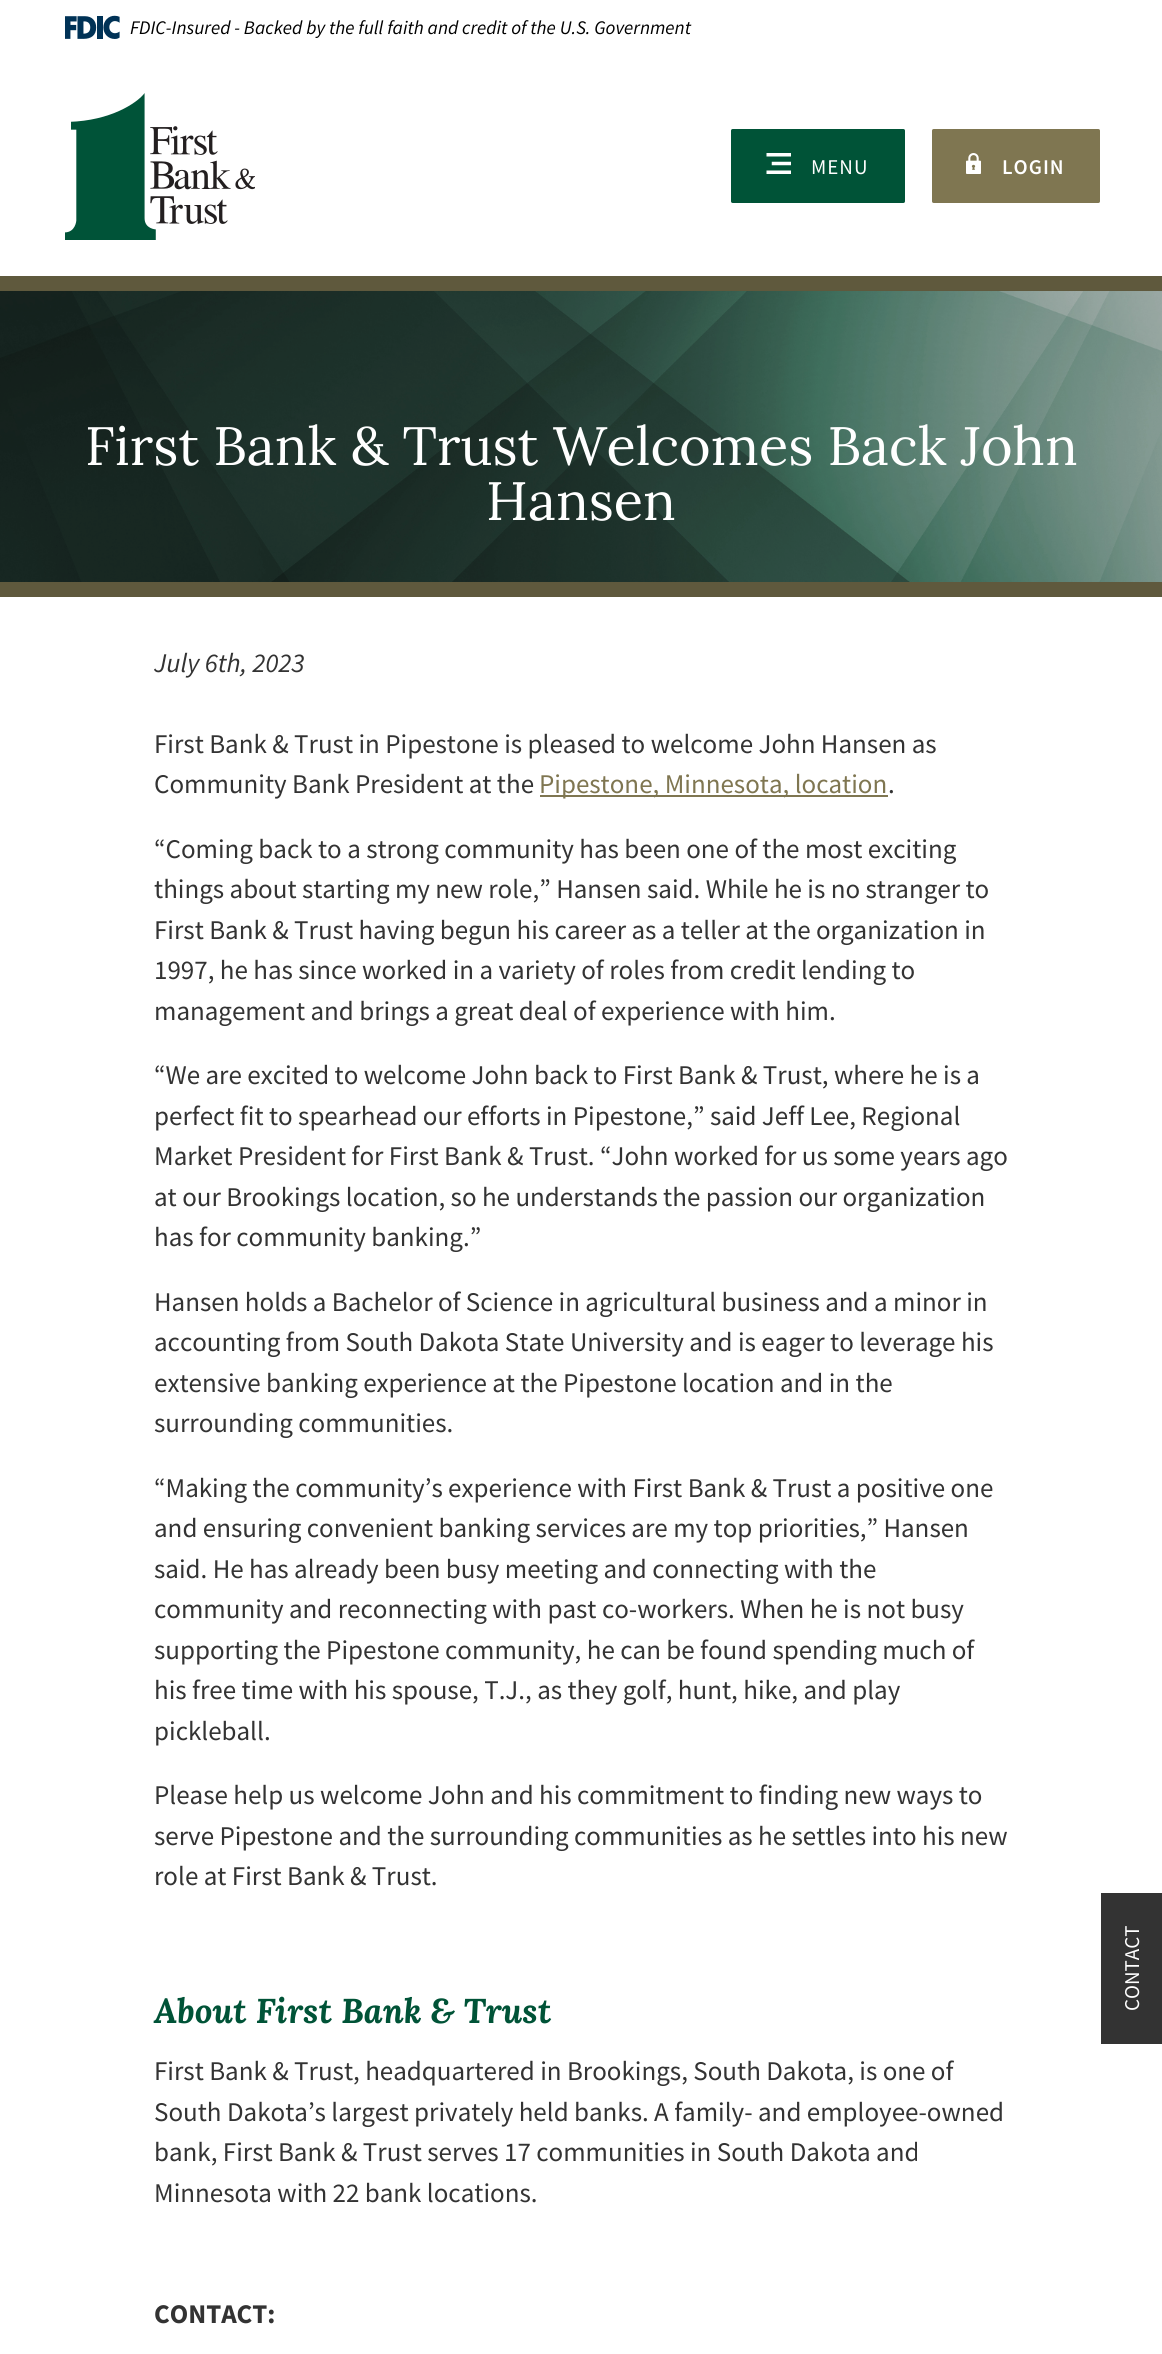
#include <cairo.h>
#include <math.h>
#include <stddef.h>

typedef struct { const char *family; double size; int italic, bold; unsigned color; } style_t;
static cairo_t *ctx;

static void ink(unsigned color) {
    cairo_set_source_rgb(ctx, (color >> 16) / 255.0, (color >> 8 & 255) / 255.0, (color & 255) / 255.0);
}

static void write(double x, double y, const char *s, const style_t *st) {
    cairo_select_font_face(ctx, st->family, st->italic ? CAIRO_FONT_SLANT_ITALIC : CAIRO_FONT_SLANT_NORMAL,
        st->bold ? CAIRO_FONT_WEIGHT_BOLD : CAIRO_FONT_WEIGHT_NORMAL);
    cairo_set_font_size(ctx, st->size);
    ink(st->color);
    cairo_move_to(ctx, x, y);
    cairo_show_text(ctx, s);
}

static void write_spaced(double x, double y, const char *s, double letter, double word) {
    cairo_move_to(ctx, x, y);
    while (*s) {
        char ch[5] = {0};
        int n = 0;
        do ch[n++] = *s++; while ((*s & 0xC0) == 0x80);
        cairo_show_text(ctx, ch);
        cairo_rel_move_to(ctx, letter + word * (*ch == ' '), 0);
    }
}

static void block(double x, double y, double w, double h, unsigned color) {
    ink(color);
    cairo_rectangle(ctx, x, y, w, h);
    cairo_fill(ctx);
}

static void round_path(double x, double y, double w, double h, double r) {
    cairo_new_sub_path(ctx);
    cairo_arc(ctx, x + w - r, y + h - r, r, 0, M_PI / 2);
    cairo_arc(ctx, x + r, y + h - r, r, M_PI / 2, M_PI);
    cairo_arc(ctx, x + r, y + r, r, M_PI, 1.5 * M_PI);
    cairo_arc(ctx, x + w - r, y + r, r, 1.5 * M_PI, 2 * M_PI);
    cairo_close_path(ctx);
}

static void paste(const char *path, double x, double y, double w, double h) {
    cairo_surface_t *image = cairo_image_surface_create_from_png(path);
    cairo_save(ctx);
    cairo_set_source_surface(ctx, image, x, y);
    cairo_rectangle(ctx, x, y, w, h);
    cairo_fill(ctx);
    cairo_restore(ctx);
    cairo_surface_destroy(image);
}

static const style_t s1 = {"Source Sans Pro", 19.2, 1, 0, 0x000000};
static const style_t s2 = {"Lora", 54, 0, 0, 0xffffff};
static const style_t s3 = {"Source Sans Pro", 27, 1, 0, 0x333333};
static const style_t s4 = {"Source Sans Pro", 27, 0, 0, 0x333333};
static const style_t s5 = {"Source Sans Pro", 27, 0, 0, 0x7f7651};
static const style_t s6 = {"Lora", 34.5, 1, 1, 0x005337};
static const style_t s7 = {"Source Sans Pro", 27, 0, 1, 0x333333};
static const style_t s8 = {"Source Sans Pro", 21, 0, 0, 0xffffff};

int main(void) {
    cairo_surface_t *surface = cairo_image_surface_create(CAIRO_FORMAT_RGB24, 1162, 2354);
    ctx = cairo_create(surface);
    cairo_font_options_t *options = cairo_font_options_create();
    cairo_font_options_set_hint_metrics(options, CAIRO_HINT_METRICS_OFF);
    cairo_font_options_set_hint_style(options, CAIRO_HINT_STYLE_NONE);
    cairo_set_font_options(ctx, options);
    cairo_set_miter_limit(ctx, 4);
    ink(0xffffff);
    cairo_paint(ctx);
    paste("pic1.png", 65, 15, 55, 24);
    write(130, 34, "FDIC-Insured - Backed by the full faith and credit of the U.S. Government", &s1);
    paste("pic2.png", 65, 93, 190, 147);
    ink(0x005337);
    round_path(732, 130, 172, 72, 0.5);
    cairo_fill_preserve(ctx);
    cairo_stroke(ctx);
    paste("pic3.png", 766, 153, 25, 21);
    cairo_select_font_face(ctx, "Source Sans Pro", CAIRO_FONT_SLANT_NORMAL, CAIRO_FONT_WEIGHT_NORMAL);
    cairo_set_font_size(ctx, 21);
    ink(0xffffff);
    write_spaced(811, 174, "MENU", 1, 0);
    ink(0x7f7651);
    round_path(933, 130, 166, 72, 0.5);
    cairo_fill_preserve(ctx);
    cairo_stroke(ctx);
    paste("pic4.png", 966, 153, 15, 21);
    cairo_select_font_face(ctx, "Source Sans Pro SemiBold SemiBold", CAIRO_FONT_SLANT_NORMAL, CAIRO_FONT_WEIGHT_NORMAL);
    ink(0xffffff);
    write_spaced(1002, 174, "LOGIN", 1, 0);
    block(0, 276, 1162, 321, 0x5f593d);
    paste("pic5.png", 0, 291, 1162, 291);
    write(85, 465, "First Bank & Trust Welcomes Back John", &s2);
    write(486, 520, "Hansen", &s2);
    write(154, 672, "July 6th, 2023", &s3);
    write(154, 753, "First Bank & Trust in Pipestone is pleased to welcome John Hansen as", &s4);
    write(154, 793, "Community Bank President at the", &s4);
    block(540, 795, 348, 2, 0x7f7651);
    write(539, 793, "Pipestone, Minnesota, location", &s5);
    write(888, 793, ".", &s4);
    write(154, 858, "“Coming back to a strong community has been one of the most exciting", &s4);
    write(154, 898, "things about starting my new role,” Hansen said. While he is no stranger to", &s4);
    write(154, 939, "First Bank & Trust having begun his career as a teller at the organization in", &s4);
    write(154, 979, "1997, he has since worked in a variety of roles from credit lending to", &s4);
    write(154, 1020, "management and brings a great deal of experience with him.", &s4);
    write(154, 1084, "“We are excited to welcome John back to First Bank & Trust, where he is a", &s4);
    write(154, 1125, "perfect fit to spearhead our efforts in Pipestone,” said Jeff Lee, Regional", &s4);
    write(154, 1165, "Market President for First Bank & Trust. “John worked for us some years ago", &s4);
    write(154, 1206, "at our Brookings location, so he understands the passion our organization", &s4);
    write(154, 1246, "has for community banking.”", &s4);
    write(154, 1311, "Hansen holds a Bachelor of Science in agricultural business and a minor in", &s4);
    write(154, 1351, "accounting from South Dakota State University and is eager to leverage his", &s4);
    write(154, 1392, "extensive banking experience at the Pipestone location and in the", &s4);
    write(154, 1432, "surrounding communities.", &s4);
    write(154, 1497, "“Making the community’s experience with First Bank & Trust a positive one", &s4);
    write(154, 1537, "and ensuring convenient banking services are my top priorities,” Hansen", &s4);
    write(154, 1578, "said. He has already been busy meeting and connecting with the", &s4);
    write(154, 1618, "community and reconnecting with past co-workers. When he is not busy", &s4);
    write(154, 1659, "supporting the Pipestone community, he can be found spending much of", &s4);
    write(154, 1699, "his free time with his spouse, T.J., as they golf, hunt, hike, and play", &s4);
    write(154, 1740, "pickleball.", &s4);
    write(154, 1804, "Please help us welcome John and his commitment to finding new ways to", &s4);
    write(154, 1845, "serve Pipestone and the surrounding communities as he settles into his new", &s4);
    write(154, 1885, "role at First Bank & Trust.", &s4);
    write(154, 2023, "About First Bank & Trust", &s6);
    write(154, 2080, "First Bank & Trust, headquartered in Brookings, South Dakota, is one of", &s4);
    write(154, 2121, "South Dakota’s largest privately held banks. A family- and employee-owned", &s4);
    write(154, 2161, "bank, First Bank & Trust serves 17 communities in South Dakota and", &s4);
    write(154, 2202, "Minnesota with 22 bank locations.", &s4);
    write(154, 2323, "CONTACT:", &s7);
    block(1101, 1893, 61, 151, 0x333333);
    cairo_save(ctx);
    cairo_translate(ctx, 1139, 2011);
    cairo_rotate(ctx, -90 * M_PI / 180);
    write(0, 0, "CONTACT", &s8);
    cairo_restore(ctx);
    cairo_surface_write_to_png(surface, "screenshot.png");
    cairo_font_options_destroy(options);
    cairo_destroy(ctx);
    cairo_surface_destroy(surface);
    return 0;
}
